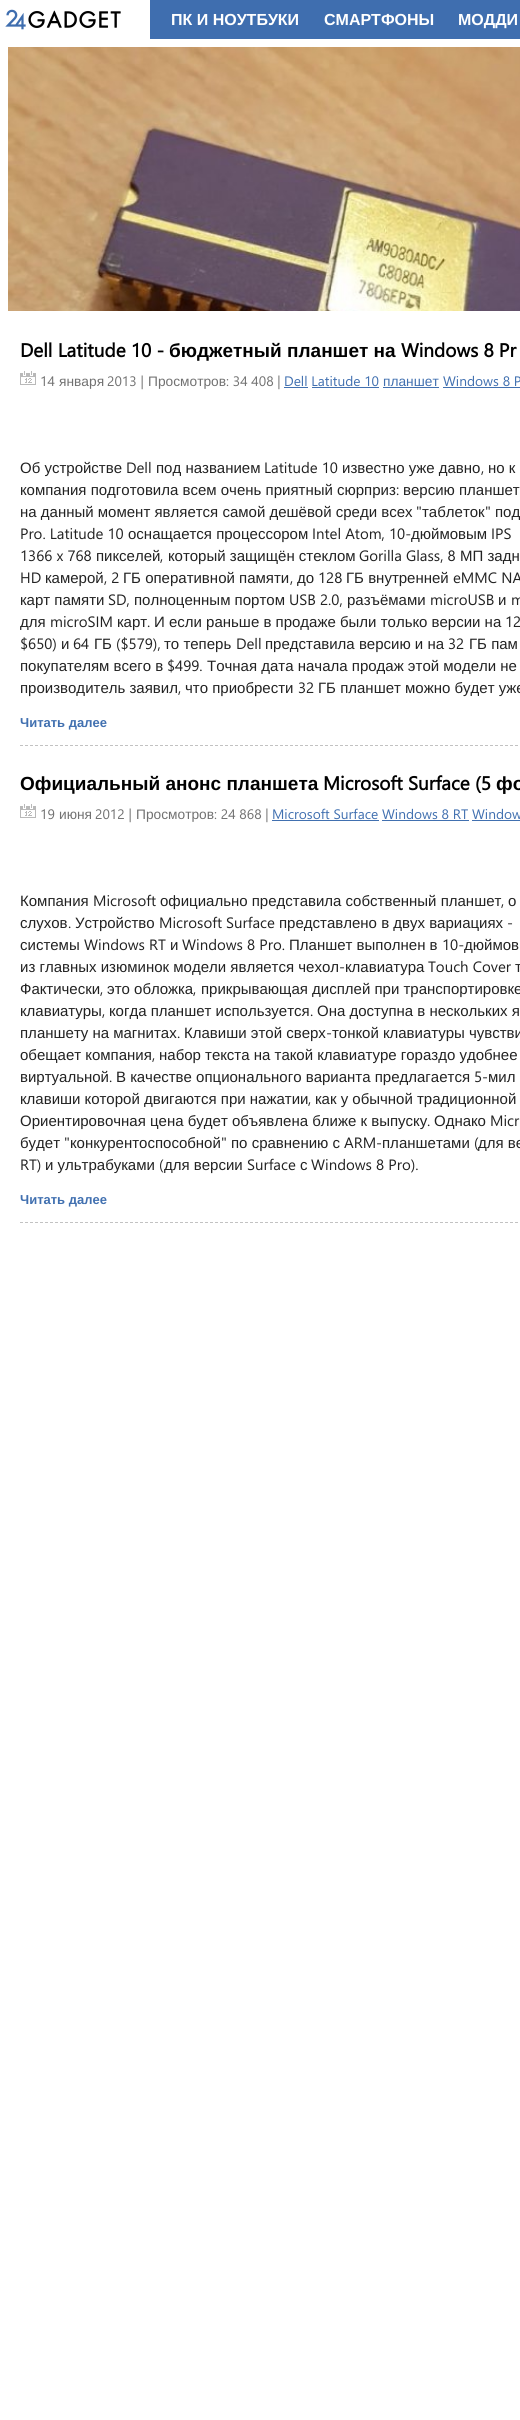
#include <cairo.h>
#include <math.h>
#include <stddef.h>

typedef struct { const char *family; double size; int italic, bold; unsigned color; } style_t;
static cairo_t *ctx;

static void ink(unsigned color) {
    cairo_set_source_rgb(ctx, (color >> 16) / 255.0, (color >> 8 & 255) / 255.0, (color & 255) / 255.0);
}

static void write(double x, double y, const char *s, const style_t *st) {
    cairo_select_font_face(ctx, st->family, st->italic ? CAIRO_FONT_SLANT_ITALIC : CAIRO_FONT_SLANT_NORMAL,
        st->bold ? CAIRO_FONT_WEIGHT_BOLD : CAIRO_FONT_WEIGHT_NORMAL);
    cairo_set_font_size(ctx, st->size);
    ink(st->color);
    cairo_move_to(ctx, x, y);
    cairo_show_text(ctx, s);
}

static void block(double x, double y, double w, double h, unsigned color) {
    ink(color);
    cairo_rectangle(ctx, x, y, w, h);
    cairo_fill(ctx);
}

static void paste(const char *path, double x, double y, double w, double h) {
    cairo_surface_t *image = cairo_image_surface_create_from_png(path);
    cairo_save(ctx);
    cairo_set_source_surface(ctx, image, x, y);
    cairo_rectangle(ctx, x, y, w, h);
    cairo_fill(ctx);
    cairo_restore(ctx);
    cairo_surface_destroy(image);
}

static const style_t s1 = {"Liberation Sans", 16, 0, 1, 0xffffff};
static const style_t s2 = {"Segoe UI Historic", 19, 0, 1, 0x010101};
static const style_t s3 = {"Liberation Sans", 19, 0, 1, 0x010101};
static const style_t s4 = {"Segoe UI Historic", 13.75, 0, 0, 0x717171};
static const style_t s5 = {"Liberation Sans", 13.75, 0, 0, 0x717171};
static const style_t s6 = {"Segoe UI Historic", 13.75, 0, 0, 0x4170b0};
static const style_t s7 = {"Liberation Sans", 13.75, 0, 0, 0x4170b0};
static const style_t s8 = {"Liberation Sans", 15, 0, 0, 0x222222};
static const style_t s9 = {"Segoe UI Historic", 15, 0, 0, 0x222222};
static const style_t s10 = {"Liberation Sans", 13, 0, 1, 0x4170b0};

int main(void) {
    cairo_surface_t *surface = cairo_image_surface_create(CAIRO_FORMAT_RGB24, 520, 2420);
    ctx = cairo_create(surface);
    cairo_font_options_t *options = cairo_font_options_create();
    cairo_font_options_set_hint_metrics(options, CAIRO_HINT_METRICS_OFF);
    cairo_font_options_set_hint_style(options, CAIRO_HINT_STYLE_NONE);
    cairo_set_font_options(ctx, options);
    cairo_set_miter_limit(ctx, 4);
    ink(0xffffff);
    cairo_paint(ctx);
    block(150, 0, 370, 39, 0x3f6eaf);
    paste("pic1.png", 5, 9, 116, 21);
    write(171, 25, "ПК И НОУТБУКИ", &s1);
    write(324, 25, "СМАРТФОНЫ", &s1);
    write(458, 25, "МОДДИ", &s1);
    paste("pic2.png", 8, 47, 512, 264);
    write(20, 357, "Dell Latitude 10 -", &s2);
    write(169, 357, "бюджетный планшет на", &s3);
    write(401, 357, "Windows 8 Pr", &s2);
    paste("pic3.png", 20, 371, 16, 14);
    write(40, 386, "14", &s4);
    write(59, 386, "января", &s5);
    write(107, 386, "2013 |", &s4);
    write(148, 386, "Просмотров", &s5);
    write(226, 386, ": 34 408 |", &s4);
    write(284, 386, "Dell Latitude 10", &s6);
    block(284, 387, 24, 1, 0x4170b0);
    write(383, 386, "планшет", &s7);
    block(383, 387, 56, 1, 0x4170b0);
    write(443, 386, "Windows 8 P", &s6);
    block(443, 387, 77, 1, 0x4170b0);
    block(312, 387, 67, 1, 0x4170b0);
    write(20, 473, "Об устройстве", &s8);
    write(126, 473, "Dell", &s9);
    write(156, 473, "под названием", &s8);
    write(264, 473, "Latitude 10", &s9);
    write(342, 473, "известно уже давно", &s8);
    write(481, 473, ",", &s9);
    write(488, 473, "но к", &s8);
    write(20, 495, "компания подготовила всем очень приятный сюрприз", &s8);
    write(396, 495, ":", &s9);
    write(403, 495, "версию планшет", &s8);
    write(20, 517, "на данный момент является самой дешёвой среди всех", &s8);
    write(416, 517, "\"", &s9);
    write(422, 517, "таблеток", &s8);
    write(485, 517, "\"", &s9);
    write(495, 517, "под", &s8);
    write(20, 539, "Pro. Latitude 10", &s9);
    write(128, 539, "оснащается процессором", &s8);
    write(312, 539, "Intel Atom, 10-", &s9);
    write(411, 539, "дюймовым", &s8);
    write(491, 539, "IPS", &s9);
    write(20, 561, "1366 x 768", &s9);
    write(96, 561, "пикселей", &s8);
    write(160, 561, ",", &s9);
    write(168, 561, "который защищён стеклом", &s8);
    write(359, 561, "Gorilla Glass, 8", &s9);
    write(460, 561, "МП задн", &s8);
    write(20, 583, "HD", &s9);
    write(45, 583, "камерой", &s8);
    write(104, 583, ", 2", &s9);
    write(123, 583, "ГБ оперативной памяти", &s8);
    write(290, 583, ",", &s9);
    write(297, 583, "до", &s8);
    write(318, 583, "128", &s9);
    write(346, 583, "ГБ внутренней", &s8);
    write(453, 583, "eMMC NA", &s9);
    write(20, 605, "карт памяти", &s8);
    write(108, 605, "SD,", &s9);
    write(134, 605, "полноценным портом", &s8);
    write(289, 605, "USB 2.0,", &s9);
    write(347, 605, "разъёмами", &s8);
    write(430, 605, "microUSB", &s9);
    write(498, 605, "и", &s8);
    write(511, 605, "m", &s9);
    write(20, 627, "для", &s8);
    write(50, 627, "microSIM", &s9);
    write(117, 627, "карт", &s8);
    write(147, 627, ".", &s9);
    write(154, 627, "И если раньше в продаже были только версии на", &s8);
    write(505, 627, "12", &s9);
    write(20, 649, "$650)", &s9);
    write(61, 649, "и", &s8);
    write(73, 649, "64", &s9);
    write(94, 649, "ГБ", &s8);
    write(116, 649, "($579),", &s9);
    write(164, 649, "то теперь", &s8);
    write(236, 649, "Dell", &s9);
    write(265, 649, "представила версию и на", &s8);
    write(448, 649, "32", &s9);
    write(469, 649, "ГБ пам", &s8);
    write(20, 671, "покупателям всего в", &s8);
    write(167, 671, "$499.", &s9);
    write(207, 671, "Точная дата начала продаж этой модели не", &s8);
    write(20, 693, "производитель заявил", &s8);
    write(178, 693, ",", &s9);
    write(185, 693, "что приобрести", &s8);
    write(298, 693, "32", &s9);
    write(318, 693, "ГБ планшет можно будет уже", &s8);
    cairo_new_path(ctx);
    cairo_move_to(ctx, 20, 745.5);
    cairo_line_to(ctx, 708, 745.5);
    ink(0xc2c2c2);
    cairo_set_line_width(ctx, 1);
    cairo_set_dash(ctx, (double[]){3, 2}, 2, 0);
    cairo_stroke(ctx);
    write(20, 727, "Читать далее", &s10);
    write(20, 790, "Официальный анонс планшета", &s3);
    write(323, 790, "Microsoft Surface (5", &s2);
    write(496, 790, "фо", &s3);
    paste("pic3.png", 20, 804, 16, 14);
    write(40, 819, "19", &s4);
    write(59, 819, "июня", &s5);
    write(95, 819, "2012 |", &s4);
    write(136, 819, "Просмотров", &s5);
    write(214, 819, ": 24 868 |", &s4);
    write(272, 819, "Microsoft Surface Windows 8 RT Window", &s6);
    block(272, 820, 107, 1, 0x4170b0);
    block(382, 820, 87, 1, 0x4170b0);
    block(472, 820, 48, 1, 0x4170b0);
    write(20, 906, "Компания", &s8);
    write(93, 906, "Microsoft", &s9);
    write(160, 906, "официально представила собственный планшет", &s8);
    write(501, 906, ",", &s9);
    write(508, 906, "о", &s8);
    write(20, 928, "слухов", &s8);
    write(75, 928, "Устройство", &s8);
    write(159, 928, "Microsoft Surface", &s9);
    write(279, 928, "представлено в двух вариациях", &s8);
    write(507, 928, "-", &s9);
    write(68, 928, ".", &s9);
    write(20, 950, "системы", &s8);
    write(84, 950, "Windows RT", &s9);
    write(170, 950, "и", &s8);
    write(182, 950, "Windows 8 Pro.", &s9);
    write(289, 950, "Планшет выполнен в", &s8);
    write(442, 950, "10-", &s9);
    write(464, 950, "дюймов", &s8);
    write(20, 972, "из главных изюминок модели является чехол", &s8);
    write(339, 972, "-", &s9);
    write(345, 972, "клавиатура", &s8);
    write(428, 972, "Touch Cover", &s9);
    write(515, 972, "т", &s8);
    write(20, 994, "Фактически", &s8);
    write(100, 994, ",", &s9);
    write(107, 994, "это обложка", &s8);
    write(193, 994, ",", &s9);
    write(201, 994, "прикрывающая дисплей при транспортировке", &s8);
    write(20, 1016, "клавиатуры", &s8);
    write(102, 1016, ",", &s9);
    write(109, 1016, "когда планшет используется", &s8);
    write(310, 1016, ".", &s9);
    write(317, 1016, "Она доступна в нескольких я", &s8);
    write(20, 1038, "планшету на магнитах", &s8);
    write(184, 1038, "Клавиши этой сверх", &s8);
    write(326, 1038, "-", &s9);
    write(332, 1038, "тонкой клавиатуры чувстви", &s8);
    write(177, 1038, ".", &s9);
    write(20, 1060, "обещает компания", &s8);
    write(152, 1060, ",", &s9);
    write(159, 1060, "набор текста на такой клавиатуре гораздо удобнее", &s8);
    write(20, 1082, "виртуальной", &s8);
    write(109, 1082, ".", &s9);
    write(116, 1082, "В качестве опционального варианта предлагается", &s8);
    write(474, 1082, "5-", &s9);
    write(488, 1082, "мил", &s8);
    write(20, 1104, "клавиши которой двигаются при нажатии", &s8);
    write(308, 1104, ",", &s9);
    write(315, 1104, "как у обычной традиционной", &s8);
    write(20, 1126, "Ориентировочная цена будет объявлена ближе к выпуску", &s8);
    write(427, 1126, ".", &s9);
    write(434, 1126, "Однако", &s8);
    write(490, 1126, "Micr", &s9);
    write(20, 1148, "будет", &s8);
    write(64, 1148, "\"", &s9);
    write(70, 1148, "конкурентоспособной", &s8);
    write(221, 1148, "\"", &s9);
    write(231, 1148, "по сравнению с", &s8);
    write(344, 1148, "ARM-", &s9);
    write(382, 1148, "планшетами", &s8);
    write(474, 1148, "(", &s9);
    write(478, 1148, "для ве", &s8);
    write(20, 1170, "RT)", &s9);
    write(45, 1170, "и ультрабуками", &s8);
    write(159, 1170, "(", &s9);
    write(164, 1170, "для версии", &s8);
    write(247, 1170, "Surface", &s9);
    write(300, 1170, "с", &s8);
    write(311, 1170, "Windows 8 Pro).", &s9);
    cairo_new_path(ctx);
    cairo_move_to(ctx, 20, 1222.5);
    cairo_line_to(ctx, 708, 1222.5);
    ink(0xc2c2c2);
    cairo_stroke(ctx);
    write(20, 1204, "Читать далее", &s10);
    cairo_surface_write_to_png(surface, "screenshot.png");
    cairo_font_options_destroy(options);
    cairo_destroy(ctx);
    cairo_surface_destroy(surface);
    return 0;
}
